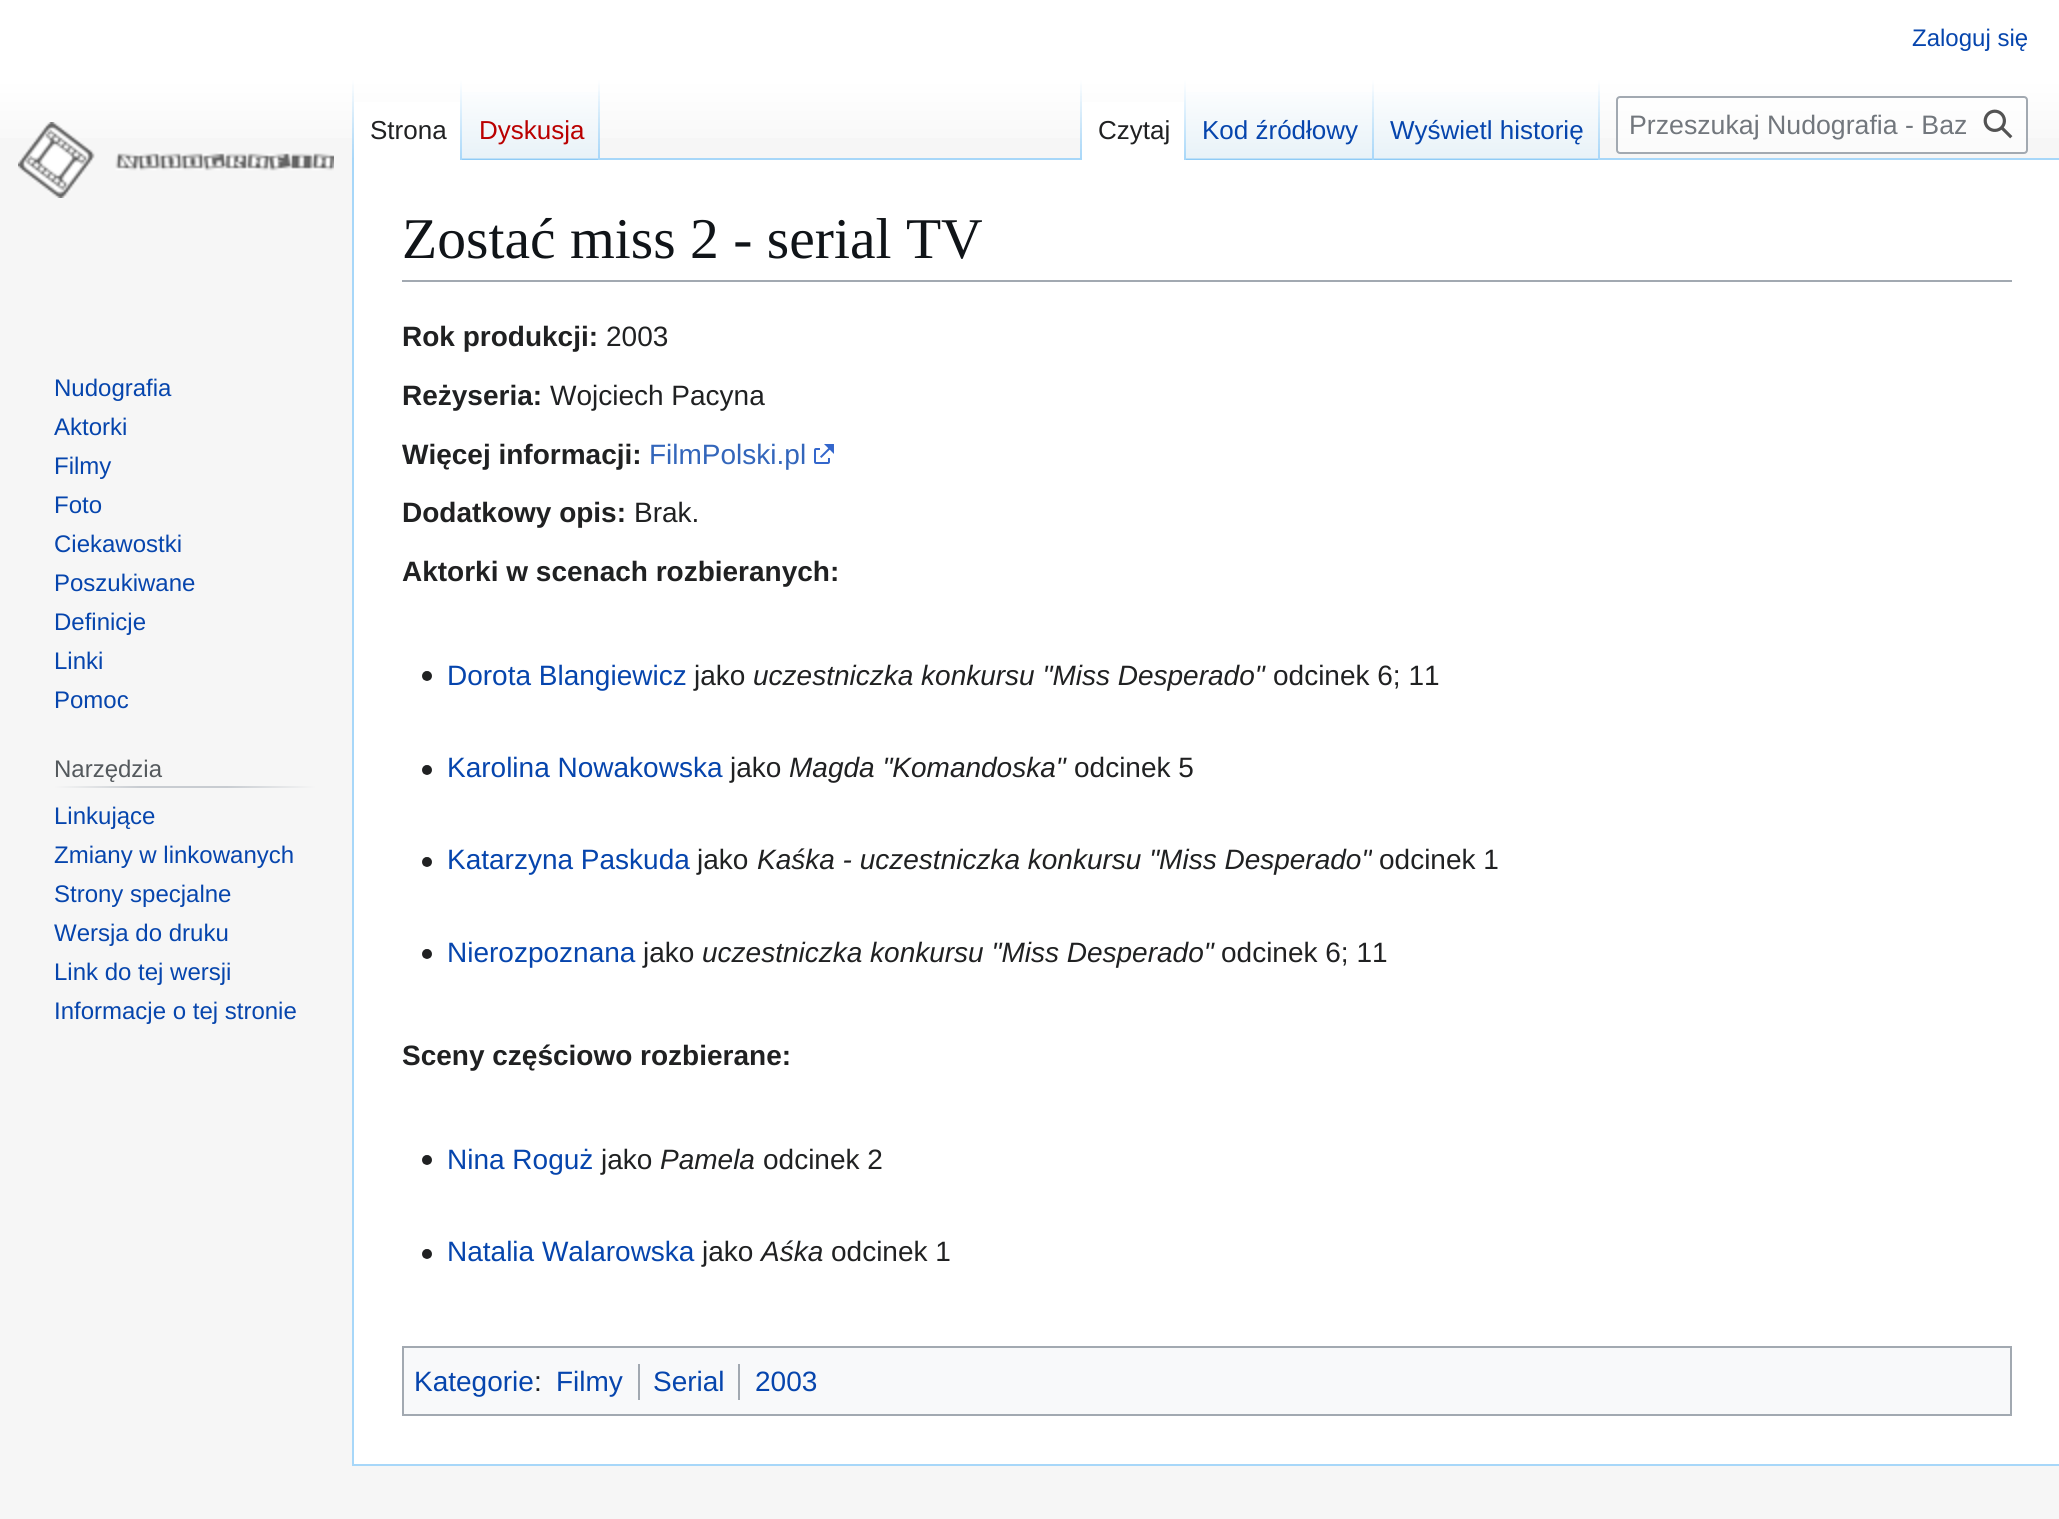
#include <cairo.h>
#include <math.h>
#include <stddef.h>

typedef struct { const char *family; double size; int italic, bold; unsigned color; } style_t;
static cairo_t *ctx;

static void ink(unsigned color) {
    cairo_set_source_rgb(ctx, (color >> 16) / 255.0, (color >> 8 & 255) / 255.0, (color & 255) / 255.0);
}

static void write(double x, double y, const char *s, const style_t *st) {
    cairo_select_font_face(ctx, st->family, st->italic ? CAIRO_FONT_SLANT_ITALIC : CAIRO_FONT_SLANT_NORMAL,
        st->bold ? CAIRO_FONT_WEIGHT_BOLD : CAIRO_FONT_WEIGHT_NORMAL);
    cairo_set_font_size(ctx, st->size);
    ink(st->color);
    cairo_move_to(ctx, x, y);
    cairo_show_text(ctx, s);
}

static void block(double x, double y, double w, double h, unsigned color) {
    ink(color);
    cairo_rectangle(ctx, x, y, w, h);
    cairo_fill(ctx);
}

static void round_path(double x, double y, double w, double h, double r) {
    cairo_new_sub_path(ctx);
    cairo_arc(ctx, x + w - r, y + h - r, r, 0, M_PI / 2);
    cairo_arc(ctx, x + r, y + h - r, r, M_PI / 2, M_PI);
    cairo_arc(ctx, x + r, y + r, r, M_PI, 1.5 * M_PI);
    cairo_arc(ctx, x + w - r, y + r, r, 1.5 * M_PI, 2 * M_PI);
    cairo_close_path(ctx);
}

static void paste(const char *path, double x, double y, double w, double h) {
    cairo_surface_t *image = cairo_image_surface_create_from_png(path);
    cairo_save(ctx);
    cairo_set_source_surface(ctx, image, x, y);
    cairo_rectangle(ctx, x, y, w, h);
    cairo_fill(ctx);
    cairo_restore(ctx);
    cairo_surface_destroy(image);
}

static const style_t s1 = {"Liberation Sans", 24, 0, 0, 0x0645ad};
static const style_t s2 = {"Liberation Sans", 26, 0, 0, 0x202122};
static const style_t s3 = {"Liberation Sans", 26, 0, 0, 0xba0000};
static const style_t s4 = {"Liberation Sans", 26, 0, 0, 0x0645ad};
static const style_t s5 = {"Liberation Sans", 26.7, 0, 0, 0x72777d};
static const style_t s6 = {"Liberation Sans", 24, 0, 0, 0x54595d};
static const style_t s7 = {"Liberation Serif", 57.6, 0, 0, 0x101418};
static const style_t s8 = {"Liberation Sans", 28, 0, 1, 0x202122};
static const style_t s9 = {"Liberation Sans", 28, 0, 0, 0x202122};
static const style_t s10 = {"Liberation Sans", 28, 0, 0, 0x3366bb};
static const style_t s11 = {"Liberation Sans", 28, 0, 0, 0x0645ad};
static const style_t s12 = {"Liberation Sans", 28, 1, 0, 0x202122};

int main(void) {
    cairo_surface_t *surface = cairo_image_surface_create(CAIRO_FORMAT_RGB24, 2059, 1519);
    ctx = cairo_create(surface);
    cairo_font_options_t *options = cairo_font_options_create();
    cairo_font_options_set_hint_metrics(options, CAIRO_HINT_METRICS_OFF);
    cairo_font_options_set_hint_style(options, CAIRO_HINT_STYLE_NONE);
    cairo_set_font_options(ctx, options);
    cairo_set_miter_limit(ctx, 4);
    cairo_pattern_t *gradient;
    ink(0xf6f6f6);
    cairo_paint(ctx);
    gradient = cairo_pattern_create_linear(1030, 0, 1030, 160);
    cairo_pattern_add_color_stop_rgba(gradient, 0.5, 1, 1, 1, 1);
    cairo_pattern_add_color_stop_rgba(gradient, 1, 0.965, 0.965, 0.965, 1);
    cairo_set_source(ctx, gradient);
    cairo_pattern_destroy(gradient);
    cairo_rectangle(ctx, 0, 0, 2059, 138);
    cairo_fill(ctx);
    write(1912, 46, "Zaloguj się", &s1);
    block(352, 1464, 1707, 2, 0xa7d7f9);
    block(352, 158, 2, 1308, 0xa7d7f9);
    gradient = cairo_pattern_create_linear(353, 80, 353, 160);
    cairo_pattern_add_color_stop_rgba(gradient, 0, 0.655, 0.843, 0.976, 0);
    cairo_pattern_add_color_stop_rgba(gradient, 1, 0.655, 0.843, 0.976, 1);
    cairo_set_source(ctx, gradient);
    cairo_pattern_destroy(gradient);
    cairo_rectangle(ctx, 352, 80, 2, 80);
    cairo_fill(ctx);
    block(354, 102, 106, 58, 0xffffff);
    gradient = cairo_pattern_create_linear(461, 80, 461, 160);
    cairo_pattern_add_color_stop_rgba(gradient, 0, 1, 1, 1, 1);
    cairo_pattern_add_color_stop_rgba(gradient, 1, 0.655, 0.843, 0.976, 1);
    cairo_set_source(ctx, gradient);
    cairo_pattern_destroy(gradient);
    cairo_rectangle(ctx, 460, 80, 2, 80);
    cairo_fill(ctx);
    write(370, 139, "Strona", &s2);
    gradient = cairo_pattern_create_linear(531, 160, 531, 80);
    cairo_pattern_add_color_stop_rgba(gradient, 0, 0.467, 0.757, 0.965, 1);
    cairo_pattern_add_color_stop_rgba(gradient, 0.03, 0.91, 0.949, 0.973, 1);
    cairo_pattern_add_color_stop_rgba(gradient, 1, 1, 1, 1, 1);
    cairo_set_source(ctx, gradient);
    cairo_pattern_destroy(gradient);
    cairo_rectangle(ctx, 462, 92, 138, 68);
    cairo_fill(ctx);
    gradient = cairo_pattern_create_linear(599, 80, 599, 160);
    cairo_pattern_add_color_stop_rgba(gradient, 0, 0.655, 0.843, 0.976, 0);
    cairo_pattern_add_color_stop_rgba(gradient, 1, 0.655, 0.843, 0.976, 1);
    cairo_set_source(ctx, gradient);
    cairo_pattern_destroy(gradient);
    cairo_rectangle(ctx, 598, 80, 2, 80);
    cairo_fill(ctx);
    write(479, 139, "Dyskusja", &s3);
    block(600, 158, 1459, 2, 0xa7d7f9);
    gradient = cairo_pattern_create_linear(1081, 80, 1081, 160);
    cairo_pattern_add_color_stop_rgba(gradient, 0, 0.655, 0.843, 0.976, 0);
    cairo_pattern_add_color_stop_rgba(gradient, 1, 0.655, 0.843, 0.976, 1);
    cairo_set_source(ctx, gradient);
    cairo_pattern_destroy(gradient);
    cairo_rectangle(ctx, 1080, 80, 2, 80);
    cairo_fill(ctx);
    block(1082, 102, 102, 58, 0xffffff);
    gradient = cairo_pattern_create_linear(1185, 80, 1185, 160);
    cairo_pattern_add_color_stop_rgba(gradient, 0, 1, 1, 1, 1);
    cairo_pattern_add_color_stop_rgba(gradient, 1, 0.655, 0.843, 0.976, 1);
    cairo_set_source(ctx, gradient);
    cairo_pattern_destroy(gradient);
    cairo_rectangle(ctx, 1184, 80, 2, 80);
    cairo_fill(ctx);
    write(1098, 139, "Czytaj", &s2);
    gradient = cairo_pattern_create_linear(1280, 160, 1280, 80);
    cairo_pattern_add_color_stop_rgba(gradient, 0, 0.467, 0.757, 0.965, 1);
    cairo_pattern_add_color_stop_rgba(gradient, 0.03, 0.91, 0.949, 0.973, 1);
    cairo_pattern_add_color_stop_rgba(gradient, 1, 1, 1, 1, 1);
    cairo_set_source(ctx, gradient);
    cairo_pattern_destroy(gradient);
    cairo_rectangle(ctx, 1186, 92, 188, 68);
    cairo_fill(ctx);
    gradient = cairo_pattern_create_linear(1373, 80, 1373, 160);
    cairo_pattern_add_color_stop_rgba(gradient, 0, 0.655, 0.843, 0.976, 0);
    cairo_pattern_add_color_stop_rgba(gradient, 1, 0.655, 0.843, 0.976, 1);
    cairo_set_source(ctx, gradient);
    cairo_pattern_destroy(gradient);
    cairo_rectangle(ctx, 1372, 80, 2, 80);
    cairo_fill(ctx);
    write(1202, 139, "Kod źródłowy", &s4);
    gradient = cairo_pattern_create_linear(1487, 160, 1487, 80);
    cairo_pattern_add_color_stop_rgba(gradient, 0, 0.467, 0.757, 0.965, 1);
    cairo_pattern_add_color_stop_rgba(gradient, 0.03, 0.91, 0.949, 0.973, 1);
    cairo_pattern_add_color_stop_rgba(gradient, 1, 1, 1, 1, 1);
    cairo_set_source(ctx, gradient);
    cairo_pattern_destroy(gradient);
    cairo_rectangle(ctx, 1374, 92, 226, 68);
    cairo_fill(ctx);
    gradient = cairo_pattern_create_linear(1599, 80, 1599, 160);
    cairo_pattern_add_color_stop_rgba(gradient, 0, 0.655, 0.843, 0.976, 0);
    cairo_pattern_add_color_stop_rgba(gradient, 1, 0.655, 0.843, 0.976, 1);
    cairo_set_source(ctx, gradient);
    cairo_pattern_destroy(gradient);
    cairo_rectangle(ctx, 1598, 80, 2, 80);
    cairo_fill(ctx);
    write(1390, 139, "Wyświetl historię", &s4);
    cairo_set_source_rgba(ctx, 1, 1, 1, 0.5);
    round_path(1617, 97, 410, 56, 3);
    cairo_fill_preserve(ctx);
    ink(0xa2a9b1);
    cairo_stroke(ctx);
    write(1629, 134, "Przeszukaj Nudografia - Baz", &s5);
    paste("pic1.png", 1983, 109, 30, 30);
    paste("pic2.png", 18, 122, 316, 76);
    write(54, 396, "Nudografia", &s1);
    write(54, 435, "Aktorki", &s1);
    write(54, 474, "Filmy", &s1);
    write(54, 513, "Foto", &s1);
    write(54, 552, "Ciekawostki", &s1);
    write(54, 591, "Poszukiwane", &s1);
    write(54, 630, "Definicje", &s1);
    write(54, 669, "Linki", &s1);
    write(54, 708, "Pomoc", &s1);
    gradient = cairo_pattern_create_linear(54, 787, 316, 787);
    cairo_pattern_add_color_stop_rgba(gradient, 0, 0.965, 0.965, 0.965, 1);
    cairo_pattern_add_color_stop_rgba(gradient, 0.33, 0.784, 0.8, 0.82, 1);
    cairo_pattern_add_color_stop_rgba(gradient, 0.66, 0.784, 0.8, 0.82, 1);
    cairo_pattern_add_color_stop_rgba(gradient, 1, 0.965, 0.965, 0.965, 1);
    cairo_set_source(ctx, gradient);
    cairo_pattern_destroy(gradient);
    cairo_rectangle(ctx, 54, 786, 262, 2);
    cairo_fill(ctx);
    write(54, 777, "Narzędzia", &s6);
    write(54, 824, "Linkujące", &s1);
    write(54, 863, "Zmiany w linkowanych", &s1);
    write(54, 902, "Strony specjalne", &s1);
    write(54, 941, "Wersja do druku", &s1);
    write(54, 980, "Link do tej wersji", &s1);
    write(54, 1019, "Informacje o tej stronie", &s1);
    block(354, 160, 1705, 1304, 0xffffff);
    block(402, 280, 1610, 2, 0xa2a9b1);
    write(402, 258, "Zostać miss 2 - serial TV", &s7);
    write(402, 346, "Rok produkcji:", &s8);
    write(606, 346, "2003", &s9);
    write(402, 405, "Reżyseria:", &s8);
    write(550, 405, "Wojciech Pacyna", &s9);
    write(402, 464, "Więcej informacji:", &s8);
    write(649, 464, "FilmPolski.pl", &s10);
    paste("pic3.png", 814, 444, 20, 20);
    write(402, 522, "Dodatkowy opis:", &s8);
    write(634, 522, "Brak.", &s9);
    write(402, 581, "Aktorki w scenach rozbieranych:", &s8);
    paste("pic4.png", 422, 671, 10, 10);
    write(447, 685, "Dorota Blangiewicz", &s11);
    write(694, 685, "jako", &s9);
    write(753, 685, "uczestniczka konkursu \"Miss Desperado\"", &s12);
    write(1273, 685, "odcinek 6; 11", &s9);
    paste("pic4.png", 422, 765, 10, 10);
    write(447, 777, "Karolina Nowakowska", &s11);
    write(730, 777, "jako", &s9);
    write(789, 777, "Magda \"Komandoska\"", &s12);
    write(1074, 777, "odcinek 5", &s9);
    paste("pic4.png", 422, 857, 10, 10);
    write(447, 869, "Katarzyna Paskuda", &s11);
    write(697, 869, "jako", &s9);
    write(757, 869, "Kaśka - uczestniczka konkursu \"Miss Desperado\"", &s12);
    write(1379, 869, "odcinek 1", &s9);
    paste("pic4.png", 422, 949, 10, 10);
    write(447, 962, "Nierozpoznana", &s11);
    write(643, 962, "jako", &s9);
    write(702, 962, "uczestniczka konkursu \"Miss Desperado\"", &s12);
    write(1221, 962, "odcinek 6; 11", &s9);
    write(402, 1065, "Sceny częściowo rozbierane:", &s8);
    paste("pic4.png", 422, 1155, 10, 10);
    write(447, 1169, "Nina Roguż", &s11);
    write(601, 1169, "jako", &s9);
    write(660, 1169, "Pamela", &s12);
    write(763, 1169, "odcinek 2", &s9);
    paste("pic4.png", 422, 1249, 10, 10);
    write(447, 1261, "Natalia Walarowska", &s11);
    write(702, 1261, "jako", &s9);
    write(761, 1261, "Aśka", &s12);
    write(831, 1261, "odcinek 1", &s9);
    ink(0xf8f9fa);
    cairo_rectangle(ctx, 403, 1347, 1608, 68);
    cairo_fill_preserve(ctx);
    ink(0xa2a9b1);
    cairo_stroke(ctx);
    write(414, 1391, "Kategorie", &s11);
    write(534, 1391, ":", &s9);
    write(556, 1391, "Filmy", &s11);
    block(638, 1364, 2, 36, 0xa2a9b1);
    write(653, 1391, "Serial", &s11);
    block(738, 1364, 2, 36, 0xa2a9b1);
    write(755, 1391, "2003", &s11);
    cairo_surface_write_to_png(surface, "screenshot.png");
    cairo_font_options_destroy(options);
    cairo_destroy(ctx);
    cairo_surface_destroy(surface);
    return 0;
}
